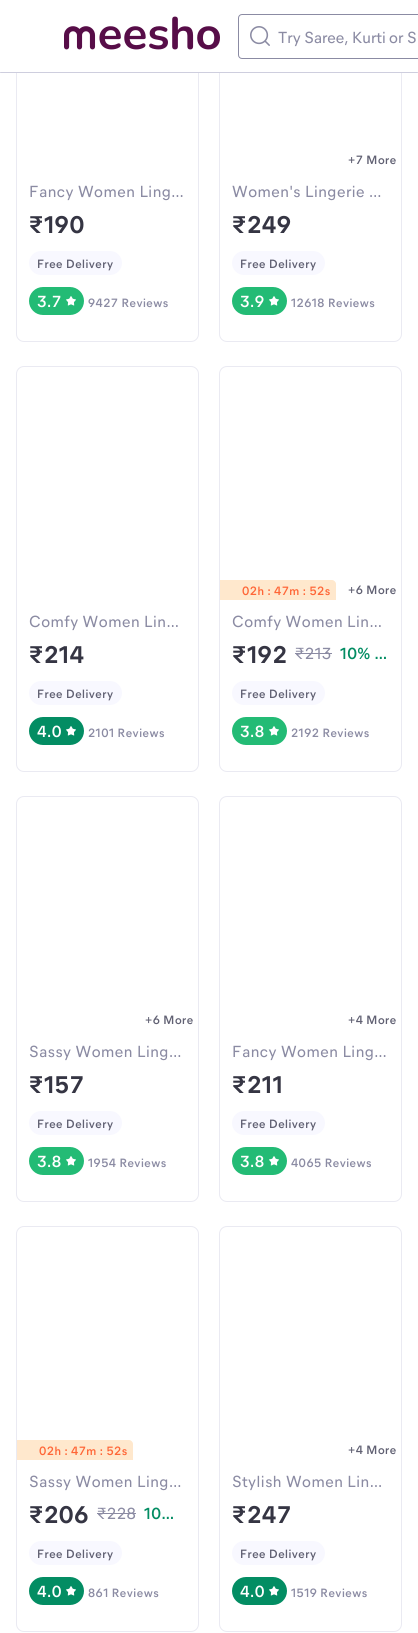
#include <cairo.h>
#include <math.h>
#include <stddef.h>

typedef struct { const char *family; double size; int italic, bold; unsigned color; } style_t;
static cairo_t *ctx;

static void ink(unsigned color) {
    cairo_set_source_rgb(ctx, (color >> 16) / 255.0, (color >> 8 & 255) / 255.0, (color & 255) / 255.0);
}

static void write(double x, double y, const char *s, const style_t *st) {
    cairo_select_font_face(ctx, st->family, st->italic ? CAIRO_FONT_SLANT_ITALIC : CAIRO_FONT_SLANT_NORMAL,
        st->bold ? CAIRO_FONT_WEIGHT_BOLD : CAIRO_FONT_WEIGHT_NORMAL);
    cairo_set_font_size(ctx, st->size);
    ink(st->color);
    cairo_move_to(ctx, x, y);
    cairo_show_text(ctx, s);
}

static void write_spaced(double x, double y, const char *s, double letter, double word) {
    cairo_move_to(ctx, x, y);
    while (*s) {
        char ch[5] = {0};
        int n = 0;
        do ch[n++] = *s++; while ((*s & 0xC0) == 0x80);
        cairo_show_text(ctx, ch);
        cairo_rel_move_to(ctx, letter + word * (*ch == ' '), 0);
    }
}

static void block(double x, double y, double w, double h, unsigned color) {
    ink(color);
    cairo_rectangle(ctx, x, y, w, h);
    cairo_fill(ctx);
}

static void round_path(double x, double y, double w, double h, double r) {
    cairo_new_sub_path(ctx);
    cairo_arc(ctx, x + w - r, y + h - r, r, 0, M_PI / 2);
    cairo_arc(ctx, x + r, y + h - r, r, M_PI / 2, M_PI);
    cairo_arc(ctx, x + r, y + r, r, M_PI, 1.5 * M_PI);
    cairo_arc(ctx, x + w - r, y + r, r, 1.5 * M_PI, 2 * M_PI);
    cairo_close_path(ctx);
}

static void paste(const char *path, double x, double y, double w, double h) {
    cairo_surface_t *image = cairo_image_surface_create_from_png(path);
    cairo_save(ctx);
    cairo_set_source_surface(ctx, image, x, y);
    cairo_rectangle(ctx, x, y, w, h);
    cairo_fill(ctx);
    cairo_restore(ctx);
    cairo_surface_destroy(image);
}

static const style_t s1 = {"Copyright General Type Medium", 16, 0, 0, 0x8b8ba3};

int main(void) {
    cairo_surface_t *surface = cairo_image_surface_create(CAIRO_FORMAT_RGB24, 418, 1633);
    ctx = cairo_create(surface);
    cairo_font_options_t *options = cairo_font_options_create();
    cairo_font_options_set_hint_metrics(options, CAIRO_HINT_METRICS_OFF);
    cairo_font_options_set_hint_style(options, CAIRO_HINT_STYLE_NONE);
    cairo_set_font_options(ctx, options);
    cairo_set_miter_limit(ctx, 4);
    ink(0xffffff);
    cairo_paint(ctx);
    round_path(16.5, -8.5, 182, 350, 7.5);
    ink(0xeaeaf2);
    cairo_set_line_width(ctx, 1);
    cairo_stroke(ctx);
    round_path(219.5, -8.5, 182, 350, 7.5);
    cairo_stroke(ctx);
    block(16, 0, 386, 73, 0xffffff);
    paste("pic1.png", 64, 16, 156, 34);
    round_path(238.5, 14.5, 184, 44, 3.5);
    ink(0x8b8ba3);
    cairo_stroke(ctx);
    paste("pic2.png", 250, 26, 20, 20);
    write(278, 43, "Try Saree, Kurti or S", &s1);
    ink(0xcecede);
    round_path(0, 72, 418, 1, 0.5);
    cairo_fill(ctx);
    ink(0x8b8ba3);
    write_spaced(29, 197, "Fancy Women Ling…", 0.5, 0);
    cairo_select_font_face(ctx, "Copyright General Type", CAIRO_FONT_SLANT_NORMAL, CAIRO_FONT_WEIGHT_BOLD);
    cairo_set_font_size(ctx, 24);
    ink(0x353543);
    write_spaced(29, 233, "₹190", 0.5, 0);
    ink(0xf8f8ff);
    round_path(29, 251, 93, 24, 12);
    cairo_fill(ctx);
    cairo_select_font_face(ctx, "Copyright General Type SemiBold", CAIRO_FONT_SLANT_NORMAL, CAIRO_FONT_WEIGHT_NORMAL);
    cairo_set_font_size(ctx, 12);
    ink(0x616173);
    write_spaced(37, 268, "Free Delivery", 0.5, 0);
    ink(0x23bb75);
    round_path(29, 287, 55, 28, 14);
    cairo_fill(ctx);
    cairo_set_font_size(ctx, 16);
    ink(0xffffff);
    write_spaced(37, 307, "3.7", 0.5, 0);
    paste("pic3.png", 66, 296, 10, 10);
    cairo_set_font_size(ctx, 12);
    ink(0x8b8ba3);
    write_spaced(88, 307, "9427 Reviews", 0.5, 0);
    ink(0x616173);
    write_spaced(348, 164, "+7 More", 0.5, 0);
    cairo_select_font_face(ctx, "Copyright General Type Medium", CAIRO_FONT_SLANT_NORMAL, CAIRO_FONT_WEIGHT_NORMAL);
    cairo_set_font_size(ctx, 16);
    ink(0x8b8ba3);
    write_spaced(232, 197, "Women's Lingerie …", 0.5, 0);
    cairo_select_font_face(ctx, "Copyright General Type", CAIRO_FONT_SLANT_NORMAL, CAIRO_FONT_WEIGHT_BOLD);
    cairo_set_font_size(ctx, 24);
    ink(0x353543);
    write_spaced(232, 233, "₹249", 0.5, 0);
    ink(0xf8f8ff);
    round_path(232, 251, 93, 24, 12);
    cairo_fill(ctx);
    cairo_select_font_face(ctx, "Copyright General Type SemiBold", CAIRO_FONT_SLANT_NORMAL, CAIRO_FONT_WEIGHT_NORMAL);
    cairo_set_font_size(ctx, 12);
    ink(0x616173);
    write_spaced(240, 268, "Free Delivery", 0.5, 0);
    ink(0x23bb75);
    round_path(232, 287, 55, 28, 14);
    cairo_fill(ctx);
    cairo_set_font_size(ctx, 16);
    ink(0xffffff);
    write_spaced(240, 307, "3.9", 0.5, 0);
    paste("pic3.png", 269, 296, 10, 10);
    cairo_set_font_size(ctx, 12);
    ink(0x8b8ba3);
    write_spaced(291, 307, "12618 Reviews", 0.5, 0);
    round_path(16.5, 366.5, 182, 405, 7.5);
    ink(0xeaeaf2);
    cairo_stroke(ctx);
    cairo_select_font_face(ctx, "Copyright General Type Medium", CAIRO_FONT_SLANT_NORMAL, CAIRO_FONT_WEIGHT_NORMAL);
    cairo_set_font_size(ctx, 16);
    ink(0x8b8ba3);
    write_spaced(29, 627, "Comfy Women Lin…", 0.5, 0);
    cairo_select_font_face(ctx, "Copyright General Type", CAIRO_FONT_SLANT_NORMAL, CAIRO_FONT_WEIGHT_BOLD);
    cairo_set_font_size(ctx, 24);
    ink(0x353543);
    write_spaced(29, 663, "₹214", 0.5, 0);
    ink(0xf8f8ff);
    round_path(29, 681, 93, 24, 12);
    cairo_fill(ctx);
    cairo_select_font_face(ctx, "Copyright General Type SemiBold", CAIRO_FONT_SLANT_NORMAL, CAIRO_FONT_WEIGHT_NORMAL);
    cairo_set_font_size(ctx, 12);
    ink(0x616173);
    write_spaced(37, 698, "Free Delivery", 0.5, 0);
    ink(0x038d63);
    round_path(29, 717, 55, 28, 14);
    cairo_fill(ctx);
    cairo_set_font_size(ctx, 16);
    ink(0xffffff);
    write_spaced(37, 737, "4.0", 0.5, 0);
    paste("pic4.png", 66, 726, 10, 10);
    cairo_set_font_size(ctx, 12);
    ink(0x8b8ba3);
    write_spaced(88, 737, "2101 Reviews", 0.5, 0);
    round_path(219.5, 366.5, 182, 405, 7.5);
    ink(0xeaeaf2);
    cairo_stroke(ctx);
    ink(0xffe8cd);
    cairo_new_path(ctx);
    cairo_move_to(ctx, 220, 580);
    cairo_line_to(ctx, 332, 580);
    cairo_curve_to(ctx, 334, 580, 336, 582, 336, 584);
    cairo_line_to(ctx, 336, 600);
    cairo_line_to(ctx, 220, 600);
    cairo_close_path(ctx);
    cairo_fill(ctx);
    ink(0xff6637);
    write_spaced(242, 595, "02h : 47m : 52s", 0.5, 0);
    ink(0x616173);
    write_spaced(348, 594, "+6 More", 0.5, 0);
    cairo_select_font_face(ctx, "Copyright General Type Medium", CAIRO_FONT_SLANT_NORMAL, CAIRO_FONT_WEIGHT_NORMAL);
    cairo_set_font_size(ctx, 16);
    ink(0x8b8ba3);
    write_spaced(232, 627, "Comfy Women Lin…", 0.5, 0);
    cairo_select_font_face(ctx, "Copyright General Type", CAIRO_FONT_SLANT_NORMAL, CAIRO_FONT_WEIGHT_BOLD);
    cairo_set_font_size(ctx, 24);
    ink(0x353543);
    write_spaced(232, 663, "₹192", 0.5, 0);
    cairo_select_font_face(ctx, "Copyright General Type Medium", CAIRO_FONT_SLANT_NORMAL, CAIRO_FONT_WEIGHT_NORMAL);
    cairo_set_font_size(ctx, 16);
    ink(0x8b8ba3);
    write_spaced(295, 659, "₹213", 0.5, 0);
    block(295, 653, 37, 1, 0x8b8ba3);
    cairo_select_font_face(ctx, "Copyright General Type SemiBold", CAIRO_FONT_SLANT_NORMAL, CAIRO_FONT_WEIGHT_NORMAL);
    ink(0x038d63);
    write_spaced(340, 659, "10% …", 0.5, 0);
    ink(0xf8f8ff);
    round_path(232, 681, 93, 24, 12);
    cairo_fill(ctx);
    cairo_set_font_size(ctx, 12);
    ink(0x616173);
    write_spaced(240, 698, "Free Delivery", 0.5, 0);
    ink(0x23bb75);
    round_path(232, 717, 55, 28, 14);
    cairo_fill(ctx);
    cairo_set_font_size(ctx, 16);
    ink(0xffffff);
    write_spaced(240, 737, "3.8", 0.5, 0);
    paste("pic3.png", 269, 726, 10, 10);
    cairo_set_font_size(ctx, 12);
    ink(0x8b8ba3);
    write_spaced(291, 737, "2192 Reviews", 0.5, 0);
    round_path(16.5, 796.5, 182, 405, 7.5);
    ink(0xeaeaf2);
    cairo_stroke(ctx);
    ink(0x616173);
    write_spaced(145, 1024, "+6 More", 0.5, 0);
    cairo_select_font_face(ctx, "Copyright General Type Medium", CAIRO_FONT_SLANT_NORMAL, CAIRO_FONT_WEIGHT_NORMAL);
    cairo_set_font_size(ctx, 16);
    ink(0x8b8ba3);
    write_spaced(29, 1057, "Sassy Women Ling…", 0.5, 0);
    cairo_select_font_face(ctx, "Copyright General Type", CAIRO_FONT_SLANT_NORMAL, CAIRO_FONT_WEIGHT_BOLD);
    cairo_set_font_size(ctx, 24);
    ink(0x353543);
    write_spaced(29, 1093, "₹157", 0.5, 0);
    ink(0xf8f8ff);
    round_path(29, 1111, 93, 24, 12);
    cairo_fill(ctx);
    cairo_select_font_face(ctx, "Copyright General Type SemiBold", CAIRO_FONT_SLANT_NORMAL, CAIRO_FONT_WEIGHT_NORMAL);
    cairo_set_font_size(ctx, 12);
    ink(0x616173);
    write_spaced(37, 1128, "Free Delivery", 0.5, 0);
    ink(0x23bb75);
    round_path(29, 1147, 55, 28, 14);
    cairo_fill(ctx);
    cairo_set_font_size(ctx, 16);
    ink(0xffffff);
    write_spaced(37, 1167, "3.8", 0.5, 0);
    paste("pic3.png", 66, 1156, 10, 10);
    cairo_set_font_size(ctx, 12);
    ink(0x8b8ba3);
    write_spaced(88, 1167, "1954 Reviews", 0.5, 0);
    round_path(219.5, 796.5, 182, 405, 7.5);
    ink(0xeaeaf2);
    cairo_stroke(ctx);
    ink(0x616173);
    write_spaced(348, 1024, "+4 More", 0.5, 0);
    cairo_select_font_face(ctx, "Copyright General Type Medium", CAIRO_FONT_SLANT_NORMAL, CAIRO_FONT_WEIGHT_NORMAL);
    cairo_set_font_size(ctx, 16);
    ink(0x8b8ba3);
    write_spaced(232, 1057, "Fancy Women Ling…", 0.5, 0);
    cairo_select_font_face(ctx, "Copyright General Type", CAIRO_FONT_SLANT_NORMAL, CAIRO_FONT_WEIGHT_BOLD);
    cairo_set_font_size(ctx, 24);
    ink(0x353543);
    write_spaced(232, 1093, "₹211", 0.5, 0);
    ink(0xf8f8ff);
    round_path(232, 1111, 93, 24, 12);
    cairo_fill(ctx);
    cairo_select_font_face(ctx, "Copyright General Type SemiBold", CAIRO_FONT_SLANT_NORMAL, CAIRO_FONT_WEIGHT_NORMAL);
    cairo_set_font_size(ctx, 12);
    ink(0x616173);
    write_spaced(240, 1128, "Free Delivery", 0.5, 0);
    ink(0x23bb75);
    round_path(232, 1147, 55, 28, 14);
    cairo_fill(ctx);
    cairo_set_font_size(ctx, 16);
    ink(0xffffff);
    write_spaced(240, 1167, "3.8", 0.5, 0);
    paste("pic3.png", 269, 1156, 10, 10);
    cairo_set_font_size(ctx, 12);
    ink(0x8b8ba3);
    write_spaced(291, 1167, "4065 Reviews", 0.5, 0);
    round_path(16.5, 1226.5, 182, 405, 7.5);
    ink(0xeaeaf2);
    cairo_stroke(ctx);
    ink(0xffe8cd);
    cairo_new_path(ctx);
    cairo_move_to(ctx, 17, 1440);
    cairo_line_to(ctx, 129, 1440);
    cairo_curve_to(ctx, 131, 1440, 133, 1442, 133, 1444);
    cairo_line_to(ctx, 133, 1460);
    cairo_line_to(ctx, 17, 1460);
    cairo_close_path(ctx);
    cairo_fill(ctx);
    ink(0xff6637);
    write_spaced(39, 1455, "02h : 47m : 52s", 0.5, 0);
    cairo_select_font_face(ctx, "Copyright General Type Medium", CAIRO_FONT_SLANT_NORMAL, CAIRO_FONT_WEIGHT_NORMAL);
    cairo_set_font_size(ctx, 16);
    ink(0x8b8ba3);
    write_spaced(29, 1487, "Sassy Women Ling…", 0.5, 0);
    cairo_select_font_face(ctx, "Copyright General Type", CAIRO_FONT_SLANT_NORMAL, CAIRO_FONT_WEIGHT_BOLD);
    cairo_set_font_size(ctx, 24);
    ink(0x353543);
    write_spaced(29, 1523, "₹206", 0.5, 0);
    cairo_select_font_face(ctx, "Copyright General Type Medium", CAIRO_FONT_SLANT_NORMAL, CAIRO_FONT_WEIGHT_NORMAL);
    cairo_set_font_size(ctx, 16);
    ink(0x8b8ba3);
    write_spaced(97, 1519, "₹228", 0.5, 0);
    block(97, 1513, 39, 1, 0x8b8ba3);
    cairo_select_font_face(ctx, "Copyright General Type SemiBold", CAIRO_FONT_SLANT_NORMAL, CAIRO_FONT_WEIGHT_NORMAL);
    ink(0x038d63);
    write_spaced(144, 1519, "10…", 0.5, 0);
    ink(0xf8f8ff);
    round_path(29, 1541, 93, 24, 12);
    cairo_fill(ctx);
    cairo_set_font_size(ctx, 12);
    ink(0x616173);
    write_spaced(37, 1558, "Free Delivery", 0.5, 0);
    ink(0x038d63);
    round_path(29, 1577, 55, 28, 14);
    cairo_fill(ctx);
    cairo_set_font_size(ctx, 16);
    ink(0xffffff);
    write_spaced(37, 1597, "4.0", 0.5, 0);
    paste("pic4.png", 66, 1586, 10, 10);
    cairo_set_font_size(ctx, 12);
    ink(0x8b8ba3);
    write_spaced(88, 1597, "861 Reviews", 0.5, 0);
    round_path(219.5, 1226.5, 182, 405, 7.5);
    ink(0xeaeaf2);
    cairo_stroke(ctx);
    ink(0x616173);
    write_spaced(348, 1454, "+4 More", 0.5, 0);
    cairo_select_font_face(ctx, "Copyright General Type Medium", CAIRO_FONT_SLANT_NORMAL, CAIRO_FONT_WEIGHT_NORMAL);
    cairo_set_font_size(ctx, 16);
    ink(0x8b8ba3);
    write_spaced(232, 1487, "Stylish Women Lin…", 0.5, 0);
    cairo_select_font_face(ctx, "Copyright General Type", CAIRO_FONT_SLANT_NORMAL, CAIRO_FONT_WEIGHT_BOLD);
    cairo_set_font_size(ctx, 24);
    ink(0x353543);
    write_spaced(232, 1523, "₹247", 0.5, 0);
    ink(0xf8f8ff);
    round_path(232, 1541, 93, 24, 12);
    cairo_fill(ctx);
    cairo_select_font_face(ctx, "Copyright General Type SemiBold", CAIRO_FONT_SLANT_NORMAL, CAIRO_FONT_WEIGHT_NORMAL);
    cairo_set_font_size(ctx, 12);
    ink(0x616173);
    write_spaced(240, 1558, "Free Delivery", 0.5, 0);
    ink(0x038d63);
    round_path(232, 1577, 55, 28, 14);
    cairo_fill(ctx);
    cairo_set_font_size(ctx, 16);
    ink(0xffffff);
    write_spaced(240, 1597, "4.0", 0.5, 0);
    paste("pic4.png", 269, 1586, 10, 10);
    cairo_set_font_size(ctx, 12);
    ink(0x8b8ba3);
    write_spaced(291, 1597, "1519 Reviews", 0.5, 0);
    cairo_surface_write_to_png(surface, "screenshot.png");
    cairo_font_options_destroy(options);
    cairo_destroy(ctx);
    cairo_surface_destroy(surface);
    return 0;
}
